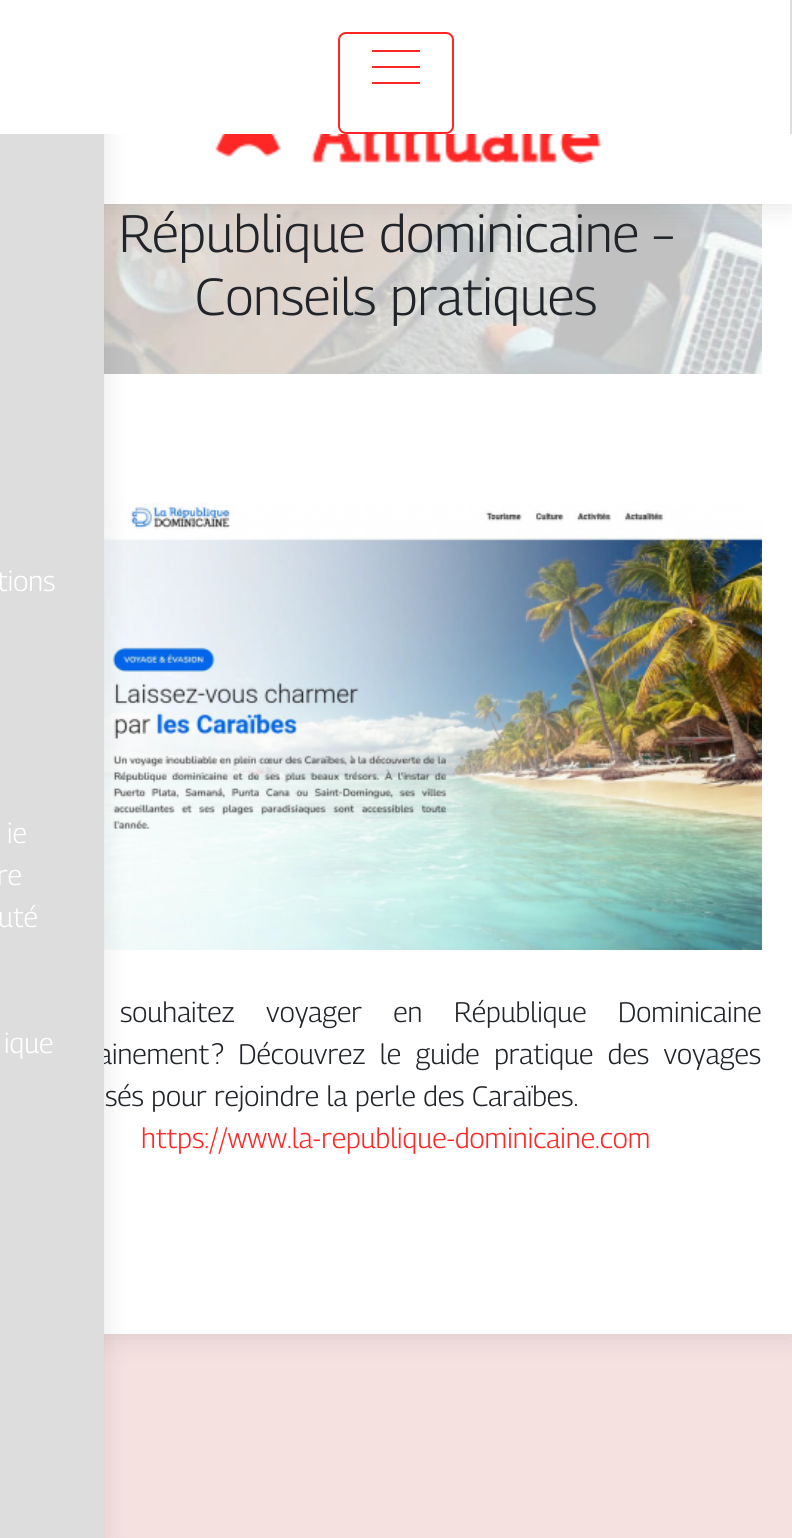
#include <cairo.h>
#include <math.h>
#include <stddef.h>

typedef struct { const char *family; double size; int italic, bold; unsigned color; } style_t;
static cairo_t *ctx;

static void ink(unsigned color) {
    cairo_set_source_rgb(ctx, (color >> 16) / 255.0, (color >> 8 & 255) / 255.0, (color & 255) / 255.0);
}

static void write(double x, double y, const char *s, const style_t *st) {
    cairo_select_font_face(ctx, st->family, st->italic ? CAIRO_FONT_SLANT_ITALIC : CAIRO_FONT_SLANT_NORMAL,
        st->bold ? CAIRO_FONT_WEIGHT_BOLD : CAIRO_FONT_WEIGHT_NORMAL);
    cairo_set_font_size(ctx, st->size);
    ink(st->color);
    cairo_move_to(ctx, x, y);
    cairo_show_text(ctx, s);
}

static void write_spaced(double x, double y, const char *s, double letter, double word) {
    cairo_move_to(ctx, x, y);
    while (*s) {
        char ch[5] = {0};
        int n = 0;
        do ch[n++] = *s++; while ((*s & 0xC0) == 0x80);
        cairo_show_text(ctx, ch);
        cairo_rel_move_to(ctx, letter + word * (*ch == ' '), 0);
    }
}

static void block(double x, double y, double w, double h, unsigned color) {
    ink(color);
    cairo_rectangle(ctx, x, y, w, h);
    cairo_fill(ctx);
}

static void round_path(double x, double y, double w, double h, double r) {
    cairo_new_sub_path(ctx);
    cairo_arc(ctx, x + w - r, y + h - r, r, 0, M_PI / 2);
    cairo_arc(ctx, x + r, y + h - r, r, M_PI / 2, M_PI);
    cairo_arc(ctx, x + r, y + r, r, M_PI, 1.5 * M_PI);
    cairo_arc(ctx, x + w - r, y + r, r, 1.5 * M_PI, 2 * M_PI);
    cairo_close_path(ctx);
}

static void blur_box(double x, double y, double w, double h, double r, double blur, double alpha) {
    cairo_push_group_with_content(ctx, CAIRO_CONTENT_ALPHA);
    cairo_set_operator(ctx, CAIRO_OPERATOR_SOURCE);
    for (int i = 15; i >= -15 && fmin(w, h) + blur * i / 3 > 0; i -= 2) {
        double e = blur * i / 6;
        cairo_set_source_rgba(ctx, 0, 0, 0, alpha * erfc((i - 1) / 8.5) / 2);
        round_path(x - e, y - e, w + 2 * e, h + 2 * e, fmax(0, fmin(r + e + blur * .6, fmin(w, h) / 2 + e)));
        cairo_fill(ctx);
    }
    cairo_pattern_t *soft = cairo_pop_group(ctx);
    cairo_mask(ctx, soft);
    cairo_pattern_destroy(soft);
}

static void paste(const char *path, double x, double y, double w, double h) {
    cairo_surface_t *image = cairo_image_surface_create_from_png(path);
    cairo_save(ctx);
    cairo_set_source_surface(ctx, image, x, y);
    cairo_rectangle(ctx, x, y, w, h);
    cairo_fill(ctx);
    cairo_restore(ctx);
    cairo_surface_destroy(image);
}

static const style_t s1 = {"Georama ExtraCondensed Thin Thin", 28, 0, 0, 0xffffff};
static const style_t s2 = {"Georama ExtraCondensed Thin Thin", 52, 0, 0, 0x212529};
static const style_t s3 = {"Georama ExtraCondensed Thin Thin", 28, 0, 0, 0x212529};
static const style_t s4 = {"Georama ExtraCondensed Thin Thin", 28, 0, 0, 0xff2626};

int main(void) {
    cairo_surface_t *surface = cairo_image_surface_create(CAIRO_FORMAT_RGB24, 792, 1538);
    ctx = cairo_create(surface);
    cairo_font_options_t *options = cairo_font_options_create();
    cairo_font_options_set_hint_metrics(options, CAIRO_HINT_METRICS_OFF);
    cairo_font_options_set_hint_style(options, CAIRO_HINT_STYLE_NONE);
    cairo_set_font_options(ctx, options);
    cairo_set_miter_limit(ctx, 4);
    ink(0xf6e1e1);
    cairo_paint(ctx);
    ink(0x000000);
    blur_box(0, 84, 792, 1254, 0, 13, 0.1);
    block(104, 204, 688, 1130, 0xffffff);
    paste("pic2.png", 104, 204, 658, 170);
    ink(0x000000);
    blur_box(0, 4, 792, 204, 0, 13, 0.1);
    block(104, 134, 688, 70, 0xffffff);
    paste("pic3.png", 104, 502, 658, 448);
    ink(0x000000);
    blur_box(-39, 4, 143, 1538, 0, 13, 0.1);
    block(0, 0, 790, 134, 0xffffff);
    block(790, 0, 2, 134, 0xdddddd);
    round_path(339, 33, 114, 100, 7);
    ink(0xff2626);
    cairo_stroke(ctx);
    block(372, 50, 48, 2, 0xff2626);
    block(372, 66, 48, 2, 0xff2626);
    block(372, 82, 48, 2, 0xff2626);
    paste("pic1.png", 215, 134, 386, 30);
    cairo_select_font_face(ctx, "Georama ExtraCondensed Thin Thin", CAIRO_FONT_SLANT_NORMAL, CAIRO_FONT_WEIGHT_NORMAL);
    cairo_set_font_size(ctx, 28);
    ink(0x212529);
    write_spaced(98, 1064, "ainement ? Découvrez le guide pratique des voyages", 0, 7);
    block(0, 134, 104, 1404, 0xdddddd);
    write(-3, 591, "tions", &s1);
    write(7, 843, "ie", &s1);
    write(-3, 885, "re", &s1);
    write(-2, 927, "uté", &s1);
    write(4, 1053, "ique", &s1);
    write(119, 252, "République dominicaine –", &s2);
    write(195, 315, "Conseils pratiques", &s2);
    cairo_set_font_size(ctx, 28);
    write_spaced(120, 1022, "souhaitez voyager en République Dominicaine", 0, 24);
    write(105, 1106, "sés pour rejoindre la perle des Caraïbes.", &s3);
    write(141, 1148, "https://www.la-republique-dominicaine.com", &s4);
    cairo_surface_write_to_png(surface, "screenshot.png");
    cairo_font_options_destroy(options);
    cairo_destroy(ctx);
    cairo_surface_destroy(surface);
    return 0;
}
